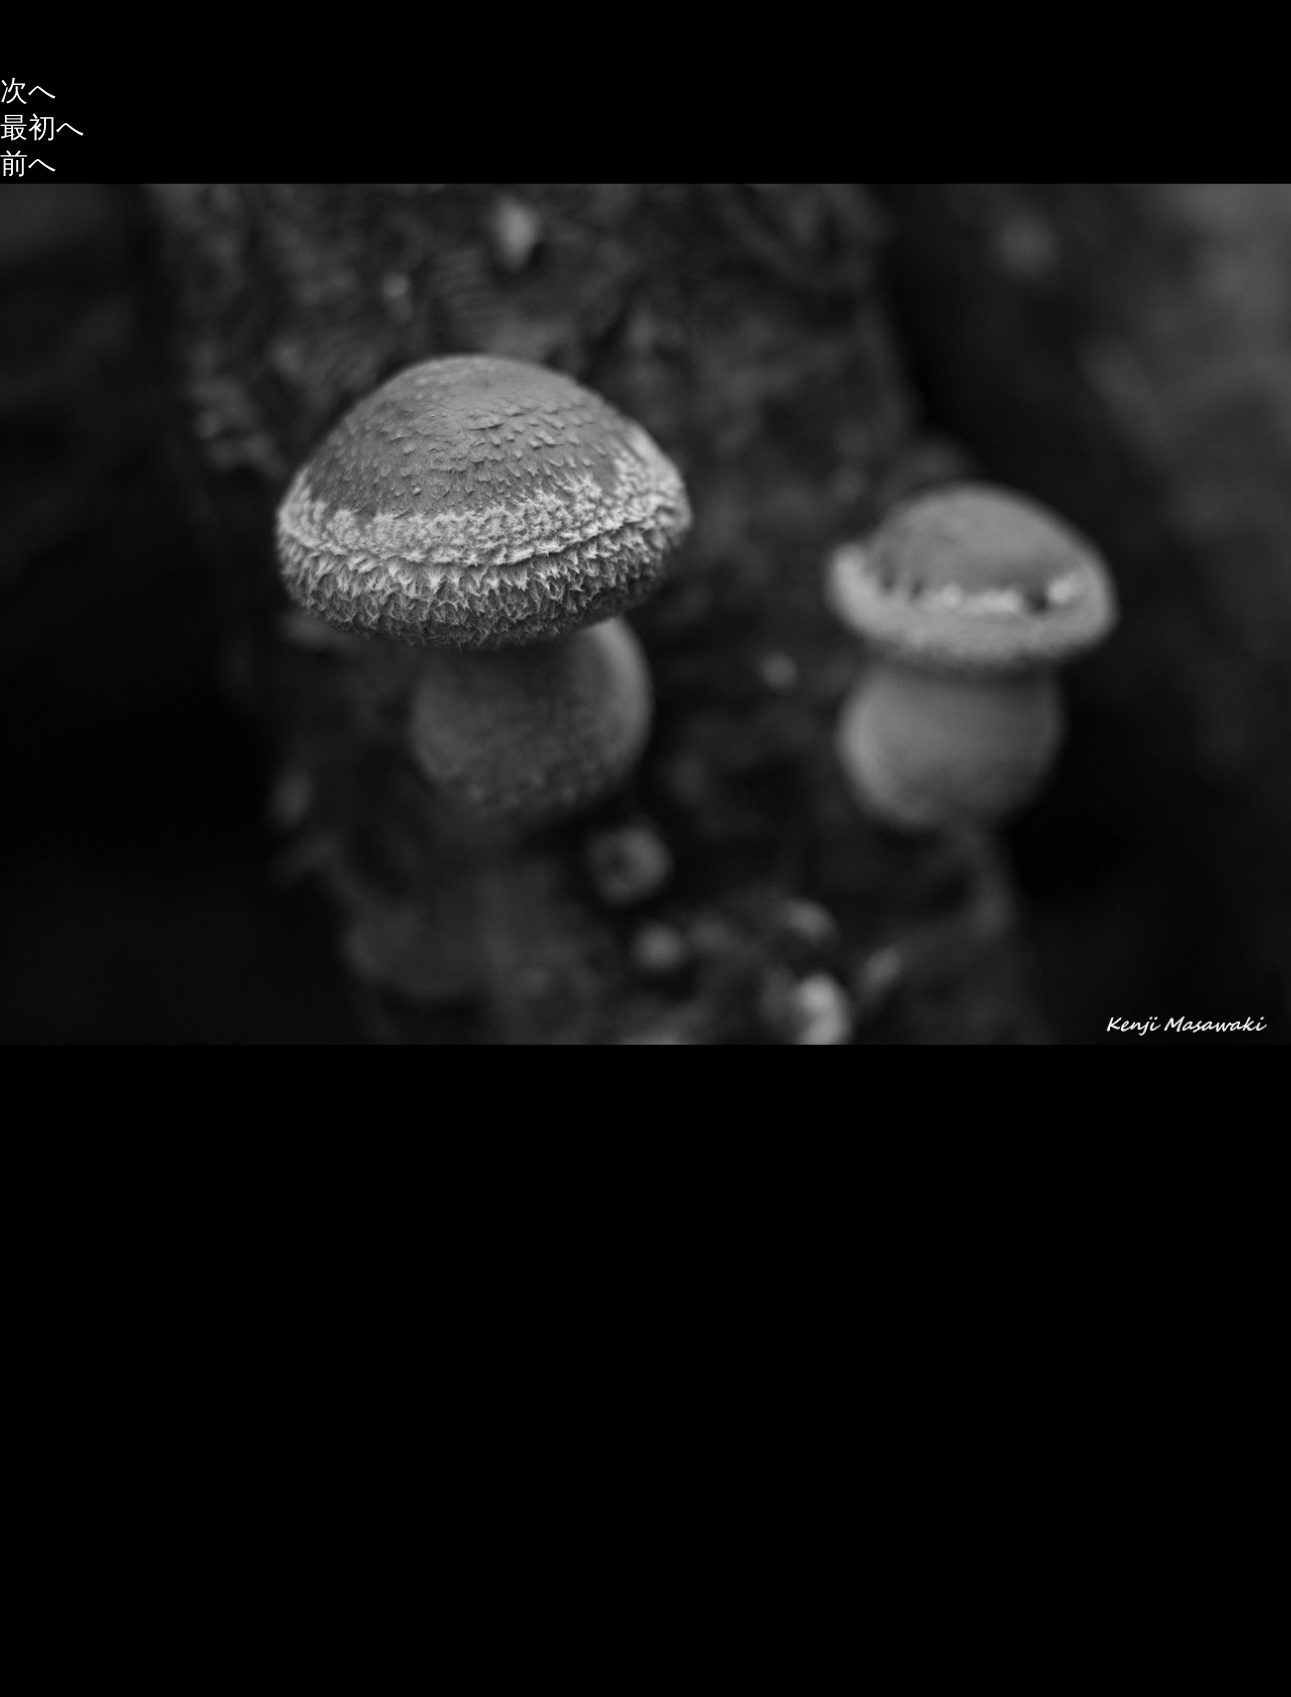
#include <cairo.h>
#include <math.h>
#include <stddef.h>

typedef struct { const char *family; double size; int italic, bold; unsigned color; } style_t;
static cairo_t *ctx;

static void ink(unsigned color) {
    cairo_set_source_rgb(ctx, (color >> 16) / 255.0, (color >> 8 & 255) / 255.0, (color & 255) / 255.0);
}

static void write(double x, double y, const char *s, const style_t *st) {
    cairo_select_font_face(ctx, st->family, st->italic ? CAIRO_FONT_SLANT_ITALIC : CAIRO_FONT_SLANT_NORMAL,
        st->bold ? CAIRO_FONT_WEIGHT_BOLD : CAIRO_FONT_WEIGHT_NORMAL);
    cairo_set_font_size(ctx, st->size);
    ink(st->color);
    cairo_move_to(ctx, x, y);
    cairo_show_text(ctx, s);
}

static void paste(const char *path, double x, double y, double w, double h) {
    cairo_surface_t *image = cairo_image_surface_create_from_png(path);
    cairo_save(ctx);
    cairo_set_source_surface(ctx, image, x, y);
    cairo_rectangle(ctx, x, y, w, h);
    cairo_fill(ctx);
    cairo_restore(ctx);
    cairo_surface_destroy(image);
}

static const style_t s1 = {"WenQuanYi Zen Hei Medium", 28, 0, 0, 0xffffff};

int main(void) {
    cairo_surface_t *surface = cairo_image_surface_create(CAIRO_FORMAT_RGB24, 1291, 1697);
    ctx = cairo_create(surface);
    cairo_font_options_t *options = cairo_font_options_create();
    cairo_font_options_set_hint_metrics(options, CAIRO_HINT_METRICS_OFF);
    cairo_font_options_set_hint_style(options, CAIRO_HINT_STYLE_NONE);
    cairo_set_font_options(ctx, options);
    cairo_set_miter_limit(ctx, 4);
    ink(0x000000);
    cairo_paint(ctx);
    write(0, 100, "次へ", &s1);
    write(0, 137, "最初へ", &s1);
    write(0, 173, "前へ", &s1);
    paste("pic1.png", 0, 183, 1291, 862);
    cairo_surface_write_to_png(surface, "screenshot.png");
    cairo_font_options_destroy(options);
    cairo_destroy(ctx);
    cairo_surface_destroy(surface);
    return 0;
}
